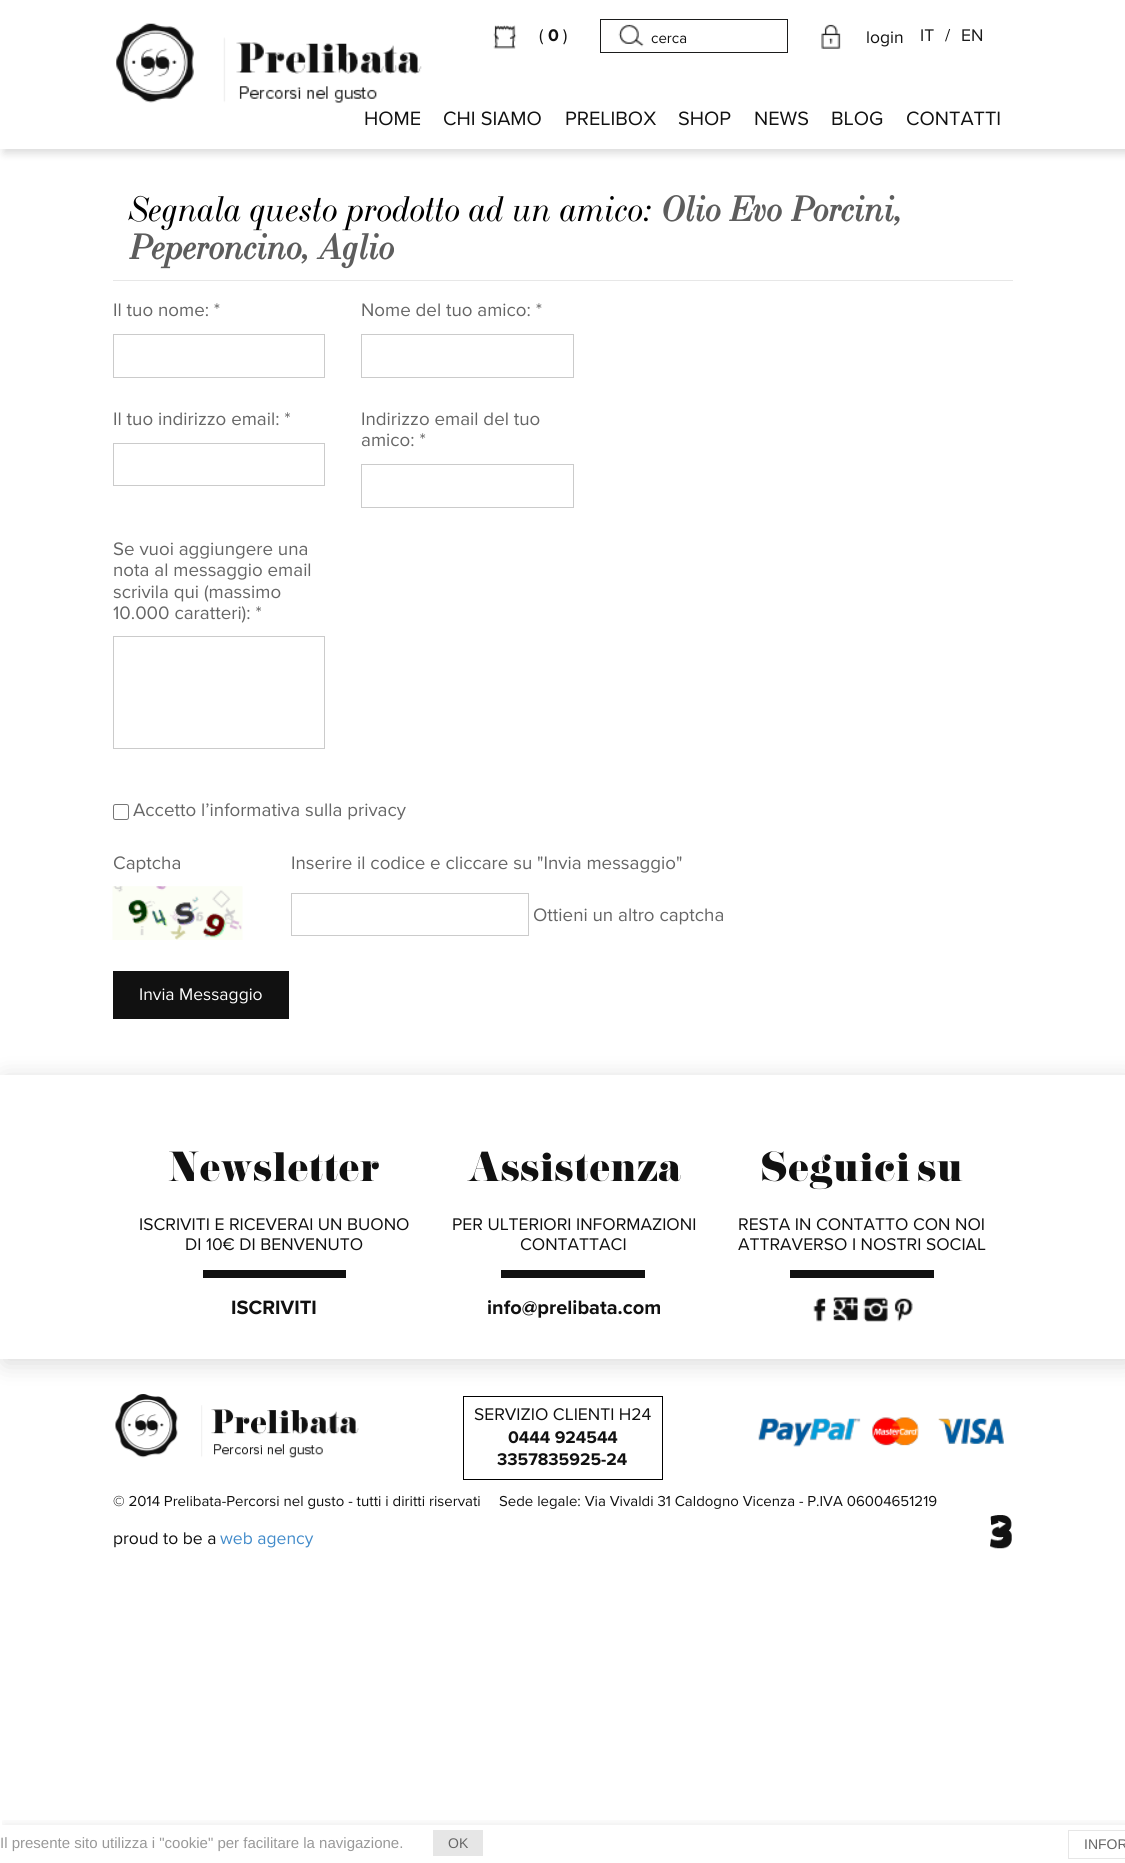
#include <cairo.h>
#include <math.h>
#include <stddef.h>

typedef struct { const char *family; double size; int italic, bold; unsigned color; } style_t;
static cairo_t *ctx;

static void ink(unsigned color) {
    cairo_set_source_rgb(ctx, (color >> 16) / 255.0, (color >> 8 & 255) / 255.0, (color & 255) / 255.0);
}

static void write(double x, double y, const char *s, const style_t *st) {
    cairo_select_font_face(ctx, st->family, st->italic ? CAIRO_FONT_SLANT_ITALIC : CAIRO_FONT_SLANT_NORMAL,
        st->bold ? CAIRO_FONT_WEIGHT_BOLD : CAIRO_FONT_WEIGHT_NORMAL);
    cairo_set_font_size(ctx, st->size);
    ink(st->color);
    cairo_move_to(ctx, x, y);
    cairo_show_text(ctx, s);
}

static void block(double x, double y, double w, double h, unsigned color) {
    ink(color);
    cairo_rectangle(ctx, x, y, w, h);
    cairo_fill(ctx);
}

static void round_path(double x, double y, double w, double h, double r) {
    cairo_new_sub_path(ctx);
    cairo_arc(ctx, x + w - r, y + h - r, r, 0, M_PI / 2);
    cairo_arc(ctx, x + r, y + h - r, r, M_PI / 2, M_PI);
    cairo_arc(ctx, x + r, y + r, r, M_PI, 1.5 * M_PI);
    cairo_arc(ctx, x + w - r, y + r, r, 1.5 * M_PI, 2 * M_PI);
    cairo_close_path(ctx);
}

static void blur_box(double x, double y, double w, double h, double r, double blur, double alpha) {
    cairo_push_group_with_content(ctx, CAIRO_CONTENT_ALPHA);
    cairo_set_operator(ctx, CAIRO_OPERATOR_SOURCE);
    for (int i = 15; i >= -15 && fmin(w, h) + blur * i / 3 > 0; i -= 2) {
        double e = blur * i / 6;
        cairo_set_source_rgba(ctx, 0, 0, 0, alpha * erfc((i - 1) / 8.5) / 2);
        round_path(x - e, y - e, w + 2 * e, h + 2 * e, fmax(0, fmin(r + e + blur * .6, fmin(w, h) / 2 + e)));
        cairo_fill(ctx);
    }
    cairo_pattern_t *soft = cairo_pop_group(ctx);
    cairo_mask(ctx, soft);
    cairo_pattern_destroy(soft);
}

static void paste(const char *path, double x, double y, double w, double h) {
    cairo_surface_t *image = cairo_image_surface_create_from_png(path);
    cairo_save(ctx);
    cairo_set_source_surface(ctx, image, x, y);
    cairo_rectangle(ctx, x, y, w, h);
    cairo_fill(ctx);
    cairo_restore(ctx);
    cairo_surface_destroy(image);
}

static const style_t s1 = {"Proxima Nova", 17.5, 0, 0, 0x111111};
static const style_t s2 = {"Proxima Nova", 17.5, 0, 1, 0x111111};
static const style_t s3 = {"Proxima Nova", 15, 0, 0, 0x111111};
static const style_t s4 = {"Proxima Nova", 17.5, 0, 0, 0x1a1a1a};
static const style_t s5 = {"Proxima Nova", 20, 0, 0, 0x111111};
static const style_t s6 = {"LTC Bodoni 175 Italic", 35, 1, 0, 0x000000};
static const style_t s7 = {"LTC Bodoni 175 Italic", 35, 1, 1, 0x5d5d5d};
static const style_t s8 = {"Proxima Nova", 18.75, 0, 0, 0x666666};
static const style_t s9 = {"Proxima Nova", 17.5, 0, 0, 0xffffff};
static const style_t s10 = {"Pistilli", 37.5, 0, 0, 0x111111};
static const style_t s11 = {"Proxima Nova", 20, 0, 1, 0x111111};
static const style_t s12 = {"Proxima Nova", 17.5, 0, 0, 0x428bca};
static const style_t s13 = {"Liberation Sans", 15, 0, 0, 0x999999};
static const style_t s14 = {"Liberation Sans", 14, 0, 0, 0x666666};

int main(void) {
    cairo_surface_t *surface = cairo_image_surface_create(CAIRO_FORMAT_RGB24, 1125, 1863);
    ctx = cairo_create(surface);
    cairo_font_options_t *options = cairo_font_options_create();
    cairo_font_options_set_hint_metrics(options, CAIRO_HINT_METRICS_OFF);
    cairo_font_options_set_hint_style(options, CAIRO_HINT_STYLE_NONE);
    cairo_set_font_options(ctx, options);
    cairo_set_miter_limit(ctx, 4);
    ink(0xffffff);
    cairo_paint(ctx);
    ink(0x000000);
    blur_box(4, 4, 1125, 149, 0, 4.5, 0.15);
    block(0, 0, 1125, 149, 0xffffff);
    paste("pic1.png", 116, 23, 306, 80);
    paste("pic2.png", 493, 25, 24, 24);
    write(539, 41, "(", &s1);
    write(548, 41, "0", &s2);
    write(563, 41, ")", &s1);
    paste("pic3.png", 618, 24, 26, 23);
    cairo_rectangle(ctx, 600.5, 19.5, 187, 33);
    ink(0x1b1c1c);
    cairo_set_line_width(ctx, 1);
    cairo_stroke(ctx);
    write(651, 43, "cerca", &s3);
    paste("pic4.png", 821, 24, 20, 25);
    write(866, 43, "login", &s1);
    write(920, 41, "IT", &s4);
    write(945, 41, "/", &s1);
    write(961, 41, "EN", &s4);
    write(364, 125, "HOME", &s5);
    write(443, 125, "CHI SIAMO", &s5);
    write(565, 125, "PRELIBOX", &s5);
    write(678, 125, "SHOP", &s5);
    write(754, 125, "NEWS", &s5);
    write(831, 125, "BLOG", &s5);
    write(906, 125, "CONTATTI", &s5);
    block(113, 280, 900, 1, 0xe7e7e7);
    write(130, 221, "Segnala questo prodotto ad un amico:", &s6);
    write(662, 221, "Olio Evo Porcini,", &s7);
    write(130, 259, "Peperoncino, Aglio", &s7);
    write(113, 316, "Il tuo nome: *", &s8);
    cairo_rectangle(ctx, 113.5, 334.5, 211, 43);
    ink(0xcbcbcb);
    cairo_stroke(ctx);
    write(361, 316, "Nome del tuo amico: *", &s8);
    cairo_rectangle(ctx, 361.5, 334.5, 212, 43);
    ink(0xcbcbcb);
    cairo_stroke(ctx);
    write(113, 425, "Il tuo indirizzo email: *", &s8);
    cairo_rectangle(ctx, 113.5, 443.5, 211, 42);
    ink(0xcbcbcb);
    cairo_stroke(ctx);
    write(361, 425, "Indirizzo email del tuo", &s8);
    write(361, 446, "amico: *", &s8);
    cairo_rectangle(ctx, 361.5, 464.5, 212, 43);
    ink(0xcbcbcb);
    cairo_stroke(ctx);
    write(113, 555, "Se vuoi aggiungere una", &s8);
    write(113, 576, "nota al messaggio email", &s8);
    write(113, 598, "scrivila qui (massimo", &s8);
    write(113, 619, "10.000 caratteri): *", &s8);
    cairo_rectangle(ctx, 113.5, 636.5, 211, 112);
    ink(0xcbcbcb);
    cairo_stroke(ctx);
    round_path(113.5, 804.5, 15, 15, 2);
    ink(0x767676);
    cairo_stroke(ctx);
    write(133, 816, "Accetto l’informativa sulla privacy", &s8);
    write(113, 869, "Captcha", &s8);
    paste("pic5.png", 112, 886, 131, 54);
    write(291, 869, "Inserire il codice e cliccare su \"Invia messaggio\"", &s8);
    cairo_rectangle(ctx, 291.5, 893.5, 237, 42);
    ink(0xcbcbcb);
    cairo_stroke(ctx);
    write(533, 921, "Ottieni un altro captcha", &s8);
    block(113, 971, 176, 48, 0x111111);
    write(139, 1000, "Invia Messaggio", &s9);
    cairo_save(ctx);
    cairo_set_fill_rule(ctx, CAIRO_FILL_RULE_EVEN_ODD);
    cairo_new_path(ctx);
    cairo_move_to(ctx, 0, 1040);
    cairo_line_to(ctx, 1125, 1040);
    cairo_line_to(ctx, 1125, 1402);
    cairo_line_to(ctx, 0, 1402);
    cairo_close_path(ctx);
    cairo_move_to(ctx, 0, 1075);
    cairo_line_to(ctx, 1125, 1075);
    cairo_line_to(ctx, 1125, 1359);
    cairo_line_to(ctx, 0, 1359);
    cairo_close_path(ctx);
    cairo_clip(ctx);
    ink(0x000000);
    blur_box(4, 1079, 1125, 284, 0, 12.5, 0.15);
    cairo_restore(ctx);
    write(168, 1181, "Newsletter", &s10);
    write(139, 1230, "ISCRIVITI E RICEVERAI UN BUONO", &s1);
    write(185, 1250, "DI 10€ DI BENVENUTO", &s1);
    block(203, 1270, 143, 8, 0x111111);
    write(231, 1314, "ISCRIVITI", &s11);
    write(467, 1181, "Assistenza", &s10);
    write(452, 1230, "PER ULTERIORI INFORMAZIONI", &s1);
    write(520, 1250, "CONTATTACI", &s1);
    block(501, 1270, 144, 8, 0x111111);
    write(487, 1314, "info@prelibata.com", &s11);
    write(760, 1181, "Seguici su", &s10);
    write(738, 1230, "RESTA IN CONTATTO CON NOI", &s1);
    write(738, 1250, "ATTRAVERSO I NOSTRI SOCIAL", &s1);
    block(790, 1270, 144, 8, 0x111111);
    paste("pic6.png", 813, 1298, 13, 24);
    paste("pic7.png", 833, 1297, 25, 24);
    paste("pic8.png", 863, 1297, 25, 25);
    paste("pic9.png", 894, 1298, 19, 24);
    paste("pic10.png", 115, 1394, 244, 64);
    cairo_rectangle(ctx, 463.5, 1396.5, 199, 83);
    ink(0x000000);
    cairo_stroke(ctx);
    write(474, 1420, "SERVIZIO CLIENTI H24", &s1);
    write(508, 1443, "0444 924544", &s2);
    write(497, 1465, "3357835925-24", &s2);
    paste("pic11.png", 758, 1417, 246, 30);
    write(113, 1506, "© 2014 Prelibata-Percorsi nel gusto - tutti i diritti riservati", &s3);
    write(499, 1506, "Sede legale: Via Vivaldi 31 Caldogno Vicenza - P.IVA 06004651219", &s3);
    write(113, 1544, "proud to be a", &s1);
    write(220, 1544, "web agency", &s12);
    paste("pic12.png", 990, 1515, 22, 34);
    cairo_save(ctx);
    cairo_rectangle(ctx, 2, 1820, 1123, 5);
    cairo_clip(ctx);
    ink(0x323232);
    blur_box(4, 1826, 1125, 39, 0, 5.5, 0.15);
    cairo_restore(ctx);
    write(0, 1848, "Il presente sito utilizza i \"cookie\" per facilitare la navigazione.", &s13);
    block(433, 1830, 50, 26, 0xe6e6e6);
    write(448, 1848, "OK", &s14);
    cairo_rectangle(ctx, 1068.5, 1830.5, 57, 28);
    ink(0xe6e6e6);
    cairo_stroke(ctx);
    write(1084, 1849, "INFOR", &s14);
    cairo_surface_write_to_png(surface, "screenshot.png");
    cairo_font_options_destroy(options);
    cairo_destroy(ctx);
    cairo_surface_destroy(surface);
    return 0;
}
